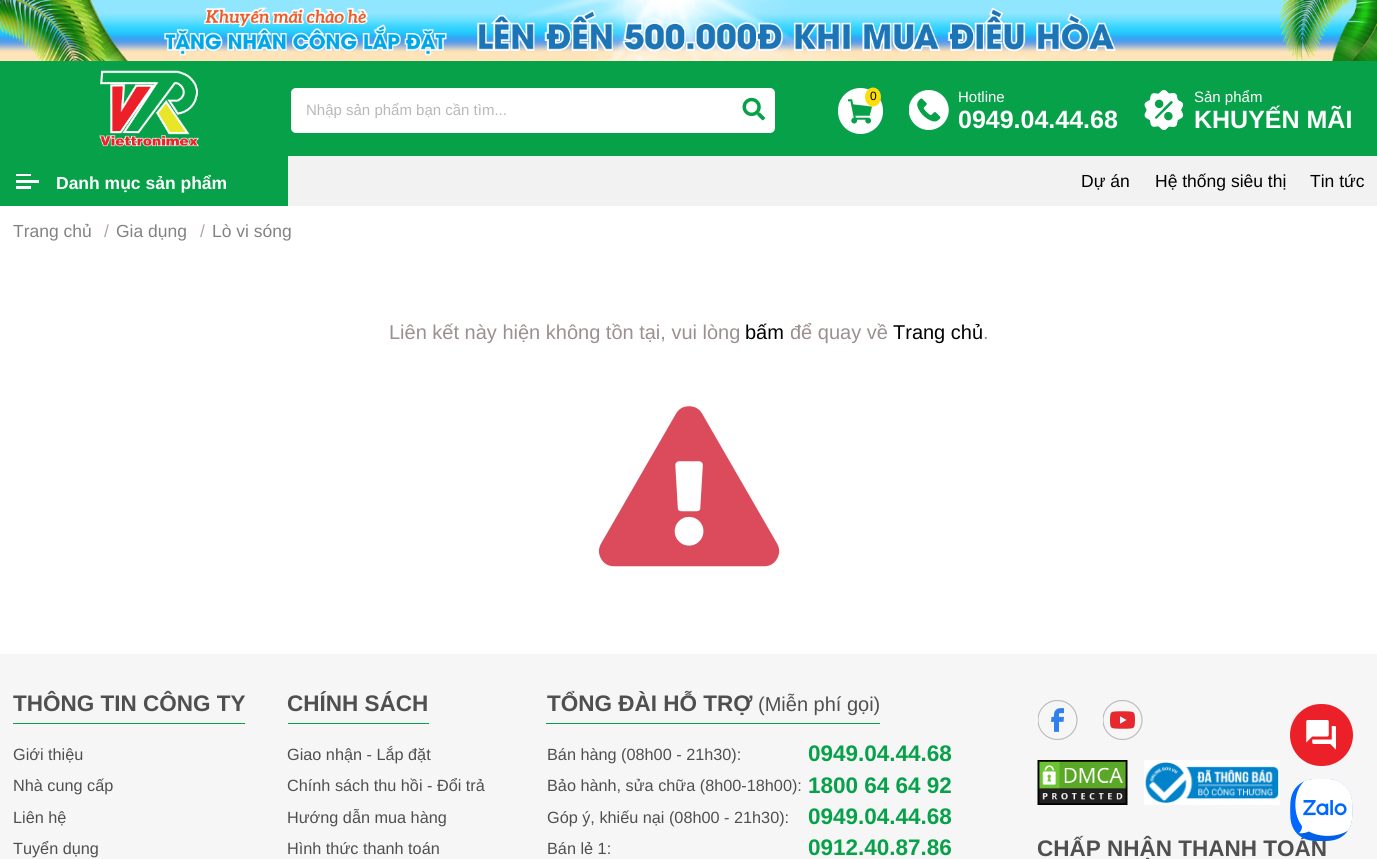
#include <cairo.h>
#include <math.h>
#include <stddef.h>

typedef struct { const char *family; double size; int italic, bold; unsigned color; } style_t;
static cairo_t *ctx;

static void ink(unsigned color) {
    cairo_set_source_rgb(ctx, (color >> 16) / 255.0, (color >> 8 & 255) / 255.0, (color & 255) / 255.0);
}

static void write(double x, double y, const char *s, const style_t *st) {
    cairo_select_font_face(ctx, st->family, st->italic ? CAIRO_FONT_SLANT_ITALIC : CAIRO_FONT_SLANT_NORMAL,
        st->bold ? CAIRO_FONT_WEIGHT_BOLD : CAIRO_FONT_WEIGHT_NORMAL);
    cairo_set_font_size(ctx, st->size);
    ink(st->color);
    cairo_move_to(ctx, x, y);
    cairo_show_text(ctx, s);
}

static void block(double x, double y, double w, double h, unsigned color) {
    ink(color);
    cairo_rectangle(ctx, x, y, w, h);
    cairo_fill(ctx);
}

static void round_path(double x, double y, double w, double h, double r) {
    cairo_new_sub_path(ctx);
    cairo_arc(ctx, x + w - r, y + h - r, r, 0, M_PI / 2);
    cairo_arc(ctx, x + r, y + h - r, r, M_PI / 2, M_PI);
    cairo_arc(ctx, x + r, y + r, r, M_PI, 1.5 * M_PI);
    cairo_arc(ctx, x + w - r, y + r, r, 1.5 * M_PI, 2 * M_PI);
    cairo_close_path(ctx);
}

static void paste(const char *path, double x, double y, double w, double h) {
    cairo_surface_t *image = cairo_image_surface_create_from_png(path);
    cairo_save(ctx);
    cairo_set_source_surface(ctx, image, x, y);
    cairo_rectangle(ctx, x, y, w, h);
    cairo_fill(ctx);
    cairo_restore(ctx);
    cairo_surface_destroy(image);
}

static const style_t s1 = {"Liberation Sans", 15, 0, 0, 0xbcb7b7};
static const style_t s2 = {"Liberation Sans", 12, 0, 0, 0x000000};
static const style_t s3 = {"Liberation Sans", 15, 0, 0, 0xfefefe};
static const style_t s4 = {"Liberation Sans", 25, 0, 1, 0xfefefe};
static const style_t s5 = {"Liberation Sans", 17.5, 0, 1, 0xfefefe};
static const style_t s6 = {"Liberation Sans", 17.5, 0, 0, 0x000000};
static const style_t s7 = {"Liberation Sans", 17.5, 0, 0, 0x828282};
static const style_t s8 = {"Liberation Sans", 17.5, 0, 0, 0xb4a5a5};
static const style_t s9 = {"Liberation Sans", 20, 0, 0, 0x9c8f8f};
static const style_t s10 = {"Liberation Sans", 20, 0, 0, 0x000000};
static const style_t s11 = {"Liberation Sans", 22.5, 0, 1, 0x4f4f4f};
static const style_t s12 = {"Liberation Sans", 16.25, 0, 0, 0x4f4f4f};
static const style_t s13 = {"Liberation Sans", 20, 0, 0, 0x4f4f4f};
static const style_t s14 = {"Liberation Sans", 22.5, 0, 1, 0x07a14a};

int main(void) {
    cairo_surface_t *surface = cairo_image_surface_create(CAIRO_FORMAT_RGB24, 1377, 859);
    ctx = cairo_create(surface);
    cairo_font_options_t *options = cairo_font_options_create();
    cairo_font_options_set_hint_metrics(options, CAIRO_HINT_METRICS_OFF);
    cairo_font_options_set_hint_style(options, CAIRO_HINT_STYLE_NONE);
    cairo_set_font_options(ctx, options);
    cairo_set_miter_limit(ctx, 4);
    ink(0xffffff);
    cairo_paint(ctx);
    paste("pic1.png", 0, 0, 1377, 61);
    block(0, 61, 1377, 95, 0x07a14a);
    paste("pic2.png", 99, 70, 100, 77);
    ink(0xffffff);
    round_path(291, 88, 484, 45, 5);
    cairo_fill(ctx);
    write(306, 115, "Nhập sản phẩm bạn cần tìm...", &s1);
    paste("pic3.png", 742, 97, 23, 24);
    ink(0xffffff);
    round_path(838, 88, 45, 46, 22.5);
    cairo_fill(ctx);
    paste("pic4.png", 848, 99, 24, 25);
    ink(0xfddc0d);
    cairo_new_path(ctx);
    cairo_move_to(ctx, 873, 87.5);
    cairo_curve_to(ctx, 877.5, 87.5, 881, 92, 881, 97);
    cairo_curve_to(ctx, 881, 102, 877.5, 106.5, 873, 106.5);
    cairo_curve_to(ctx, 868.5, 106.5, 865, 102, 865, 97);
    cairo_curve_to(ctx, 865, 92, 868.5, 87.5, 873, 87.5);
    cairo_close_path(ctx);
    cairo_fill(ctx);
    write(870, 100, "0", &s2);
    paste("pic5.png", 909, 90, 40, 40);
    write(958, 102, "Hotline", &s3);
    write(958, 128, "0949.04.44.68", &s4);
    paste("pic6.png", 1144, 90, 39, 40);
    write(1194, 102, "Sản phẩm", &s3);
    write(1194, 128, "KHUYẾN MÃI", &s4);
    block(288, 156, 1089, 50, 0xf2f2f2);
    block(0, 156, 288, 50, 0x07a14a);
    block(16, 174, 15, 2, 0xfefefe);
    block(16, 180, 23, 3, 0xfefefe);
    block(16, 186, 15, 3, 0xfefefe);
    write(56, 189, "Danh mục sản phẩm", &s5);
    write(1081, 187, "Dự án", &s6);
    write(1155, 187, "Hệ thống siêu thị", &s6);
    write(1310, 187, "Tin tức", &s6);
    write(13, 237, "Trang chủ", &s7);
    write(104, 237, "/", &s8);
    write(116, 237, "Gia dụng", &s7);
    write(200, 237, "/", &s8);
    write(212, 237, "Lò vi sóng", &s7);
    write(389, 339, "Liên kết này hiện không tồn tại, vui lòng", &s9);
    write(745, 339, "bấm", &s10);
    write(790, 339, "để quay về", &s9);
    write(893, 339, "Trang chủ", &s10);
    write(983, 339, ".", &s9);
    paste("pic7.png", 598, 406, 182, 161);
    block(0, 654, 1377, 205, 0xf6f6f6);
    block(13, 723, 232, 1, 0x07a14a);
    write(13, 711, "THÔNG TIN CÔNG TY", &s11);
    write(13, 760, "Giới thiệu", &s12);
    write(13, 791, "Nhà cung cấp", &s12);
    write(13, 823, "Liên hệ", &s12);
    write(13, 854, "Tuyển dụng", &s12);
    block(288, 723, 141, 1, 0x07a14a);
    write(287, 711, "CHÍNH SÁCH", &s11);
    write(287, 760, "Giao nhận - Lắp đặt", &s12);
    write(287, 791, "Chính sách thu hồi - Đổi trả", &s12);
    write(287, 823, "Hướng dẫn mua hàng", &s12);
    write(287, 854, "Hình thức thanh toán", &s12);
    block(546, 723, 334, 1, 0x07a14a);
    write(547, 711, "TỔNG ĐÀI HỖ TRỢ", &s11);
    write(758, 711, "(Miễn phí gọi)", &s13);
    write(547, 760, "Bán hàng (08h00 - 21h30):", &s12);
    write(808, 761, "0949.04.44.68", &s14);
    write(547, 791, "Bảo hành, sửa chữa (8h00-18h00):", &s12);
    write(808, 793, "1800 64 64 92", &s14);
    write(547, 823, "Góp ý, khiếu nại (08h00 - 21h30):", &s12);
    write(808, 824, "0949.04.44.68", &s14);
    write(547, 854, "Bán lẻ 1:", &s12);
    write(808, 855, "0912.40.87.86", &s14);
    paste("pic8.png", 1038, 700, 40, 40);
    paste("pic9.png", 1103, 700, 40, 40);
    paste("pic10.png", 1037, 760, 91, 45);
    paste("pic11.png", 1144, 760, 136, 45);
    write(1037, 856, "CHẤP NHẬN THANH TOÁN", &s11);
    ink(0xec2028);
    round_path(1290, 704, 63, 62, 31);
    cairo_fill(ctx);
    paste("pic12.png", 1306, 720, 30, 30);
    paste("pic13.png", 1290, 779, 63, 62);
    cairo_surface_write_to_png(surface, "screenshot.png");
    cairo_font_options_destroy(options);
    cairo_destroy(ctx);
    cairo_surface_destroy(surface);
    return 0;
}
